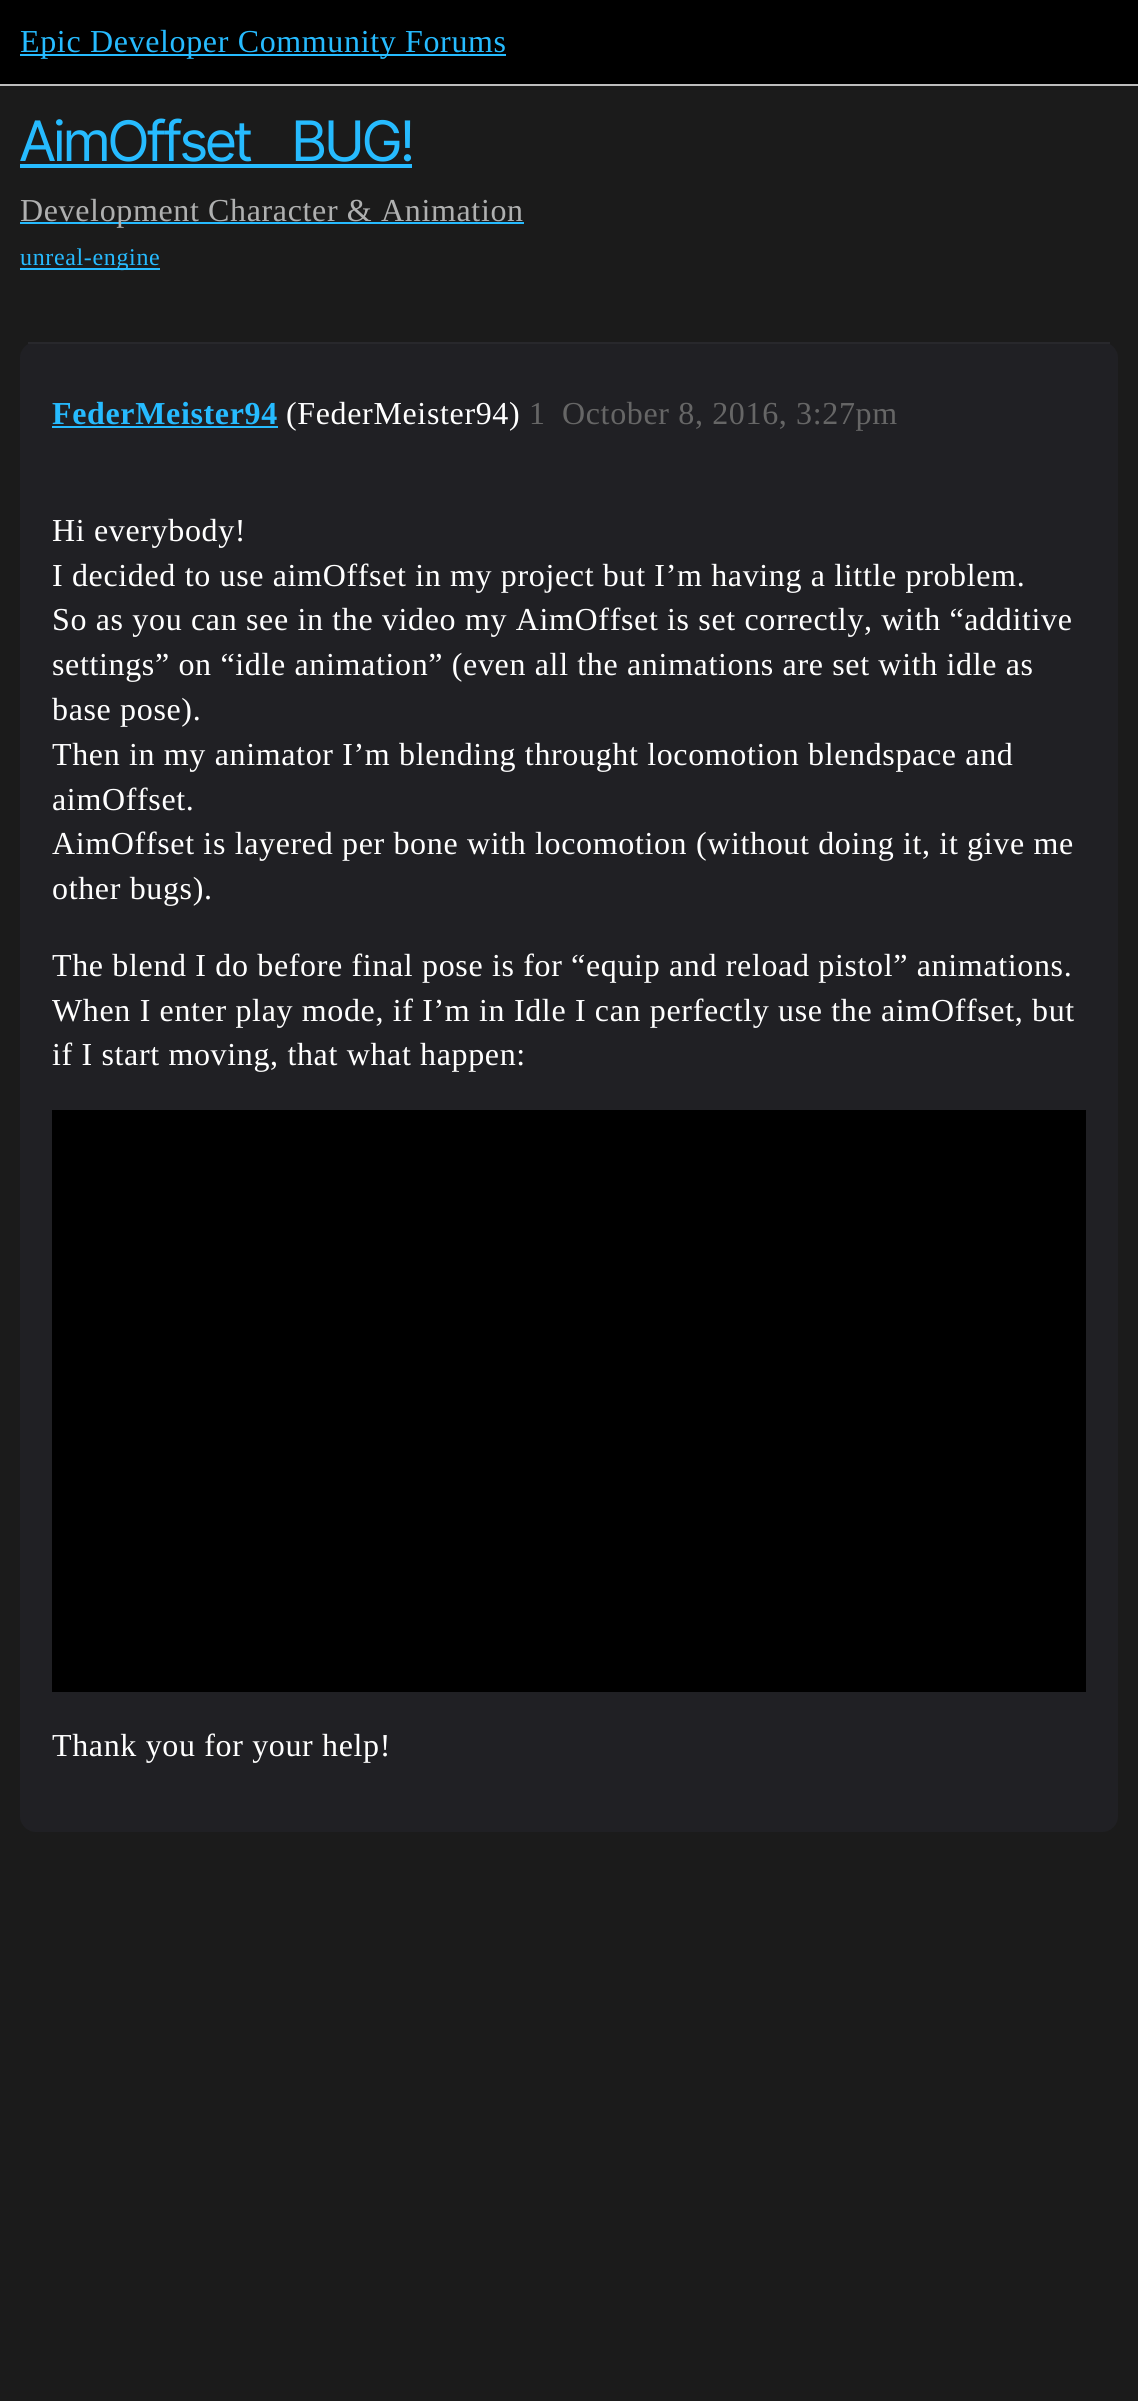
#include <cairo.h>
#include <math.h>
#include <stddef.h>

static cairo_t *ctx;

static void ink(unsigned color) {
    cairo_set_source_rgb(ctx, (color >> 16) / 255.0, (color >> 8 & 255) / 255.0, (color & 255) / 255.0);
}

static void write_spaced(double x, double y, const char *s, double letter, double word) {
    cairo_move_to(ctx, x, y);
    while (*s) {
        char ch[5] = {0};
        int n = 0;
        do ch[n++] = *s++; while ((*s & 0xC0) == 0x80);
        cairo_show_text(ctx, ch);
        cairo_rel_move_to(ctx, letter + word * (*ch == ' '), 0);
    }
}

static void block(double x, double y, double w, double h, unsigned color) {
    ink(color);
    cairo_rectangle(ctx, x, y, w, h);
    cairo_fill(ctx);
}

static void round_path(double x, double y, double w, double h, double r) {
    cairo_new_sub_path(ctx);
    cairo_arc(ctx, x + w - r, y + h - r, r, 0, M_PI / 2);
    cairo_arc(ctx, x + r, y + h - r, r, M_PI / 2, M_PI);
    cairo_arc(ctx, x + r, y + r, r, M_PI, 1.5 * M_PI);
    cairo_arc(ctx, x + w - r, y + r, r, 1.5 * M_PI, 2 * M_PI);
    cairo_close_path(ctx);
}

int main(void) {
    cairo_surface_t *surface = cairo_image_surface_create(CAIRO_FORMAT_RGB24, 1138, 2401);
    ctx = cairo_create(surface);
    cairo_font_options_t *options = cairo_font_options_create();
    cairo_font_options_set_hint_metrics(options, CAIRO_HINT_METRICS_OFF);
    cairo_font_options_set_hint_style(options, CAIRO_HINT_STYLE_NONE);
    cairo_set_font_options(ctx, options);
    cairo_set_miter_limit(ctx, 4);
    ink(0x1b1b1b);
    cairo_paint(ctx);
    block(0, 0, 1138, 84, 0x000000);
    block(0, 84, 1138, 2, 0xbdbdbd);
    block(20, 54, 486, 2, 0x26bbff);
    cairo_select_font_face(ctx, "Liberation Serif", CAIRO_FONT_SLANT_NORMAL, CAIRO_FONT_WEIGHT_NORMAL);
    cairo_set_font_size(ctx, 32);
    write_spaced(20, 52, "Epic Developer Community Forums", 0.65, 0);
    cairo_select_font_face(ctx, "Inter Tight", CAIRO_FONT_SLANT_NORMAL, CAIRO_FONT_WEIGHT_NORMAL);
    cairo_set_font_size(ctx, 55.75);
    write_spaced(20, 161, "AimOffset BUG!", -1, 29);
    block(20, 164, 392, 4, 0x26bbff);
    block(20, 222, 504, 2, 0x26bbff);
    cairo_select_font_face(ctx, "Liberation Serif", CAIRO_FONT_SLANT_NORMAL, CAIRO_FONT_WEIGHT_NORMAL);
    cairo_set_font_size(ctx, 32);
    ink(0xafb0b0);
    write_spaced(20, 221, "Development", 0.65, 0);
    write_spaced(208, 221, "Character & Animation", 0.65, 0);
    block(20, 268, 140, 2, 0x26bbff);
    cairo_set_font_size(ctx, 24);
    write_spaced(20, 265, "unreal-engine", 0.65, 0);
    ink(0x202024);
    round_path(20, 342, 1098, 1490, 16);
    cairo_fill(ctx);
    block(28, 342, 1082, 2, 0x28282c);
    cairo_select_font_face(ctx, "Liberation Serif", CAIRO_FONT_SLANT_NORMAL, CAIRO_FONT_WEIGHT_BOLD);
    cairo_set_font_size(ctx, 32);
    ink(0x26bbff);
    write_spaced(52, 424, "FederMeister94", 0.65, 0);
    block(52, 426, 226, 2, 0x26bbff);
    cairo_select_font_face(ctx, "Liberation Serif", CAIRO_FONT_SLANT_NORMAL, CAIRO_FONT_WEIGHT_NORMAL);
    ink(0xffffff);
    write_spaced(286, 424, "(FederMeister94)", 0.65, 0);
    ink(0x666666);
    write_spaced(529, 424, "1", 0.65, 0);
    write_spaced(562, 424, "October 8, 2016, 3:27pm", 0.65, 0);
    ink(0xffffff);
    write_spaced(52, 541, "Hi everybody!", 0.65, 0);
    write_spaced(52, 586, "I decided to use aimOffset in my project but I’m having a little problem.", 0.65, 0);
    write_spaced(52, 630, "So as you can see in the video my AimOffset is set correctly, with “additive", 0.65, 0);
    write_spaced(52, 675, "settings” on “idle animation” (even all the animations are set with idle as", 0.65, 0);
    write_spaced(52, 720, "base pose).", 0.65, 0);
    write_spaced(52, 765, "Then in my animator I’m blending throught locomotion blendspace and", 0.65, 0);
    write_spaced(52, 810, "aimOffset.", 0.65, 0);
    write_spaced(52, 854, "AimOffset is layered per bone with locomotion (without doing it, it give me", 0.65, 0);
    write_spaced(52, 899, "other bugs).", 0.65, 0);
    write_spaced(52, 976, "The blend I do before final pose is for “equip and reload pistol” animations.", 0.65, 0);
    write_spaced(52, 1021, "When I enter play mode, if I’m in Idle I can perfectly use the aimOffset, but", 0.65, 0);
    write_spaced(52, 1065, "if I start moving, that what happen:", 0.65, 0);
    block(52, 1110, 1034, 582, 0x000000);
    ink(0xffffff);
    write_spaced(52, 1756, "Thank you for your help!", 0.65, 0);
    cairo_surface_write_to_png(surface, "screenshot.png");
    cairo_font_options_destroy(options);
    cairo_destroy(ctx);
    cairo_surface_destroy(surface);
    return 0;
}
